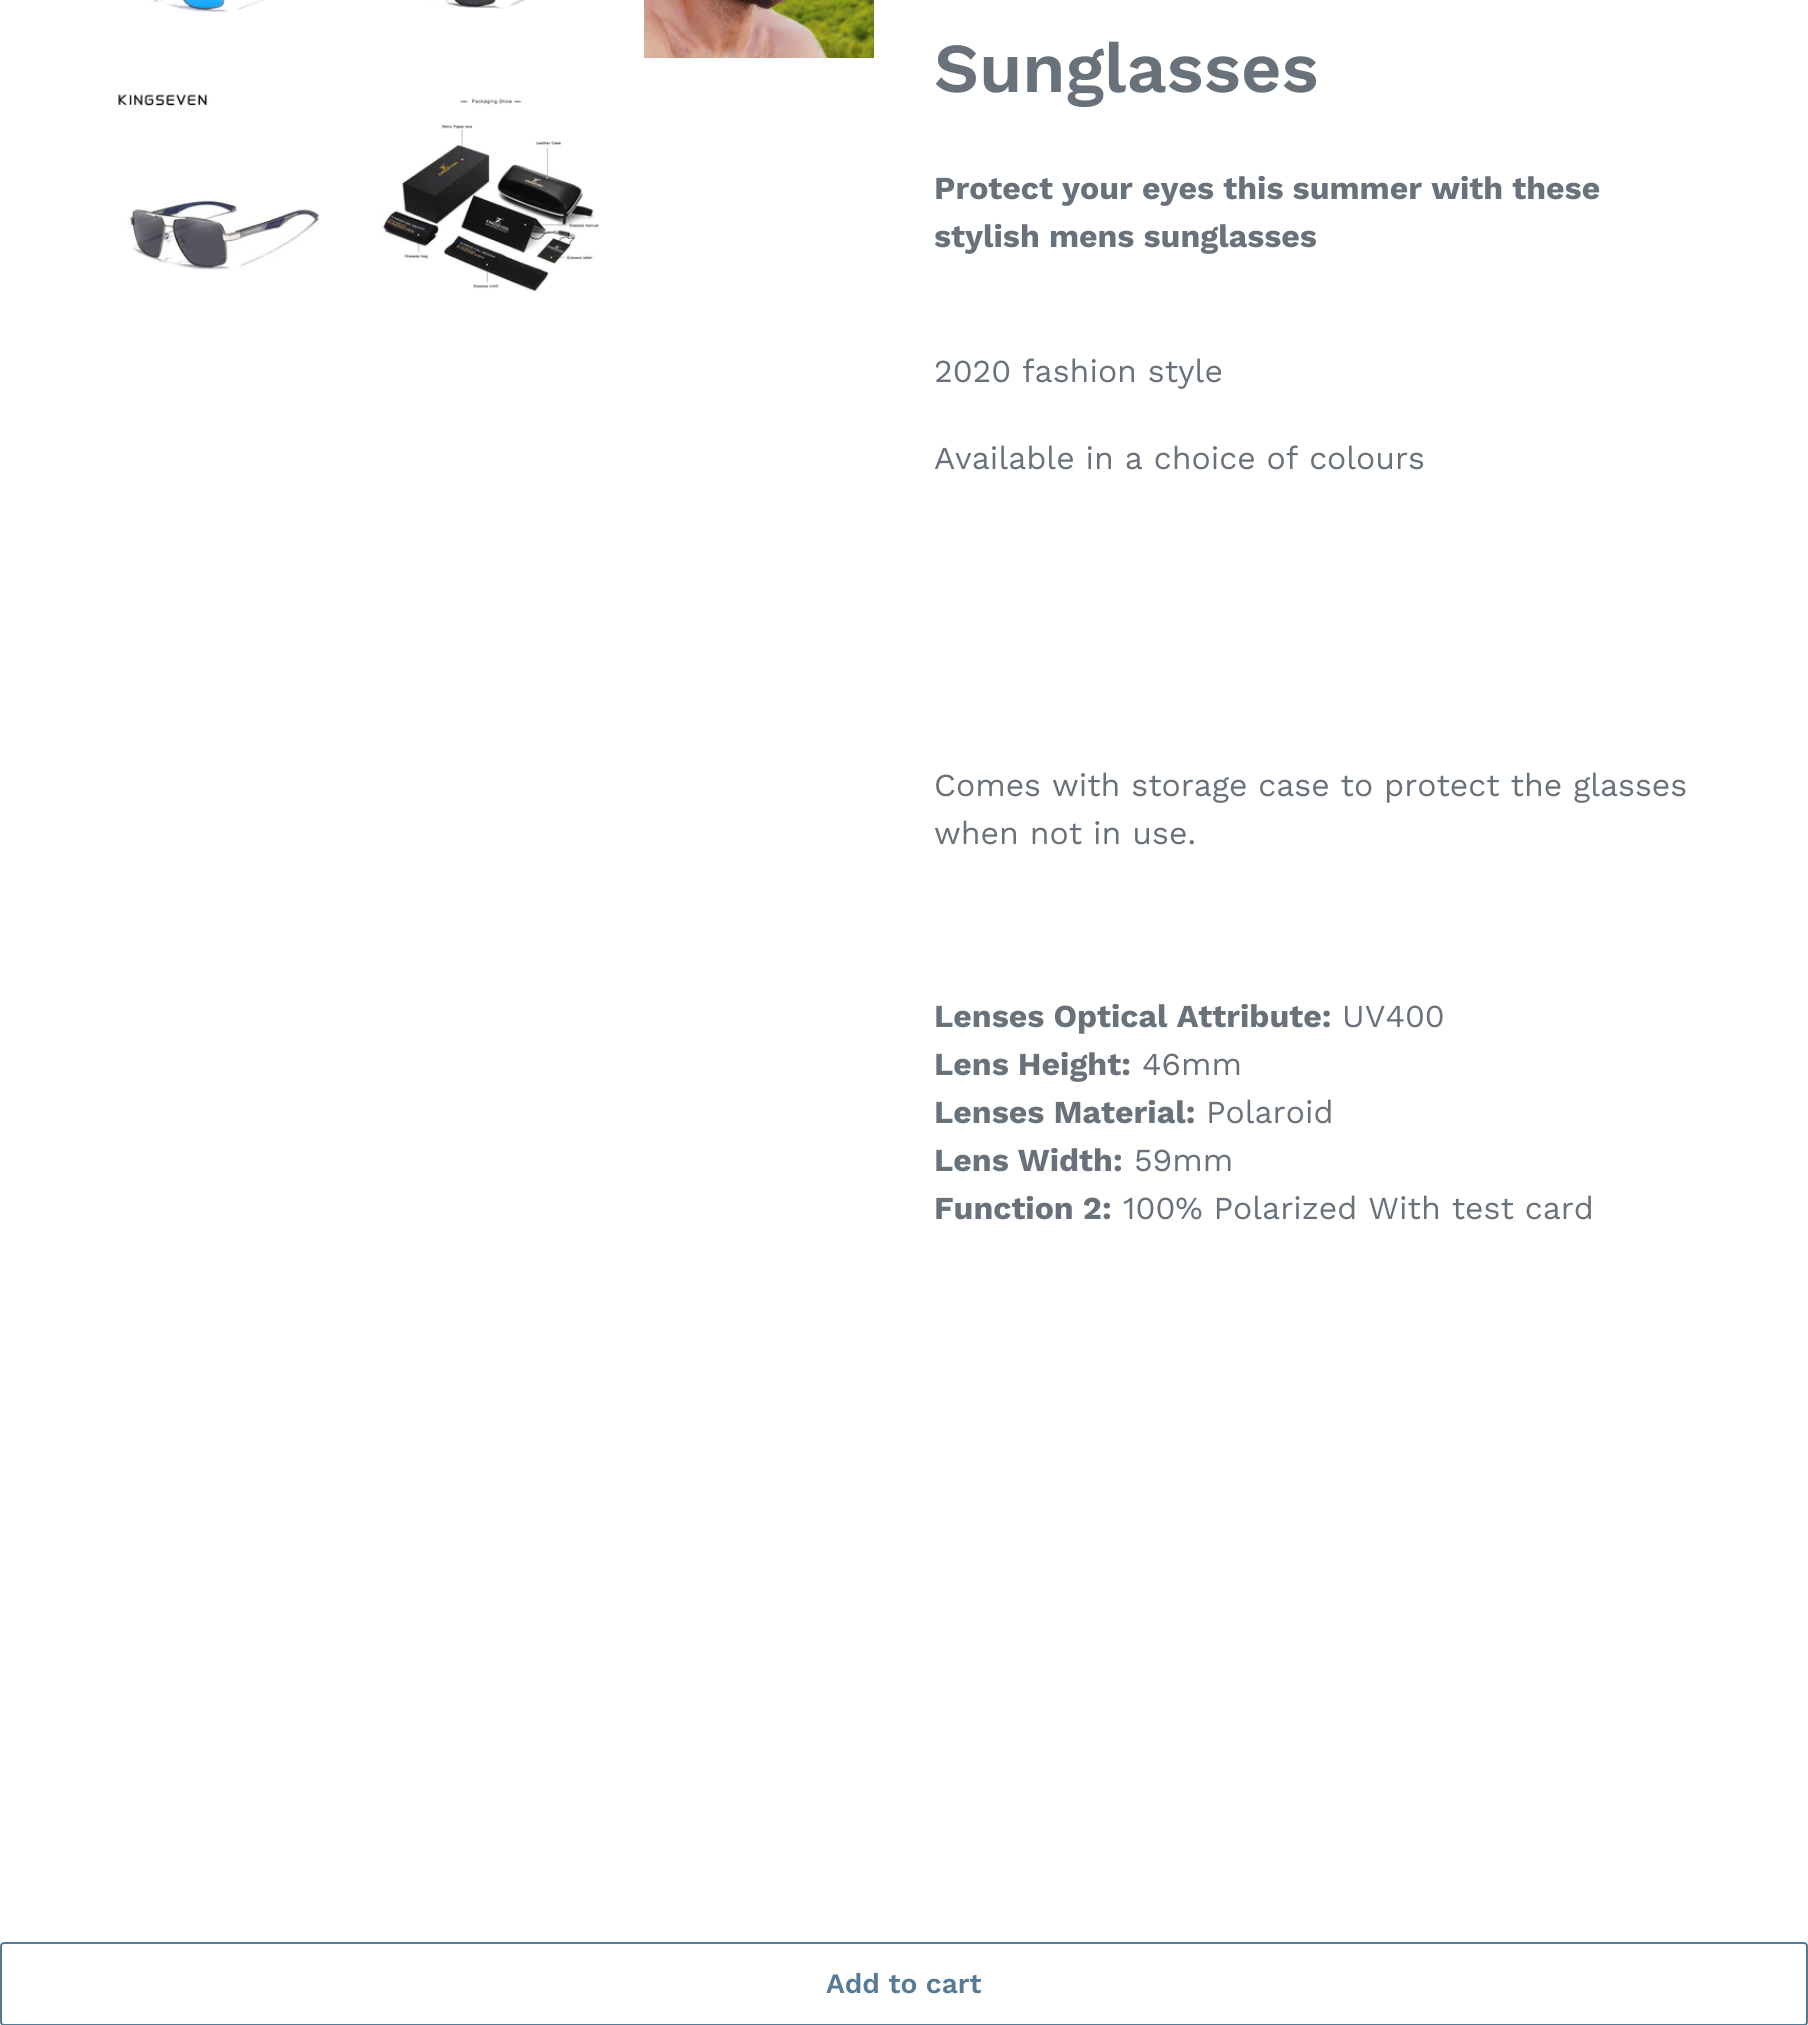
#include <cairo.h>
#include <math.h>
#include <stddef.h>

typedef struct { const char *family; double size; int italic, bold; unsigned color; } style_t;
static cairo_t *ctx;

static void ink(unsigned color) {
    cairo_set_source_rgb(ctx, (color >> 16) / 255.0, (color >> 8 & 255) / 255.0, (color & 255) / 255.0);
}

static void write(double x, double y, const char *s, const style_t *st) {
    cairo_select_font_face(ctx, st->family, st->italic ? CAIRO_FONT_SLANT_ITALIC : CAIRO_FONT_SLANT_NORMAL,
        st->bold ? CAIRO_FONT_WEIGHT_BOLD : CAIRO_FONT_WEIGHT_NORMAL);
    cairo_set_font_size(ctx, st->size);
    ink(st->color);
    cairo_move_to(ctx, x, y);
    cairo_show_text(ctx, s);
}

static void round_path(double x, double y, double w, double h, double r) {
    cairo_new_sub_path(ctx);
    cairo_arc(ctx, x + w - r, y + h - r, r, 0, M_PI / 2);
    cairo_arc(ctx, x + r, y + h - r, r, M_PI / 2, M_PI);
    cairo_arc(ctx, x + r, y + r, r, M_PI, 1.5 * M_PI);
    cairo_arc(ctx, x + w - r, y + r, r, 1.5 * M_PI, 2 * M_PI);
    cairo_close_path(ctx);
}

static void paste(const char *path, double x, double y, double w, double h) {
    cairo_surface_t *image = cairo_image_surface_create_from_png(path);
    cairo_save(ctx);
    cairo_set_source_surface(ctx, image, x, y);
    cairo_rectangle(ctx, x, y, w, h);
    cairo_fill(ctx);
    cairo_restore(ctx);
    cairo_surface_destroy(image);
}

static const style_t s1 = {"Work Sans SemiBold", 70, 0, 0, 0x69727b};
static const style_t s2 = {"Work Sans", 32, 0, 1, 0x69727b};
static const style_t s3 = {"Work Sans", 32, 0, 0, 0x69727b};
static const style_t s4 = {"Work Sans SemiBold", 28, 0, 0, 0x557b97};

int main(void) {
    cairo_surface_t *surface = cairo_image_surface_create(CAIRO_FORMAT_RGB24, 1808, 2025);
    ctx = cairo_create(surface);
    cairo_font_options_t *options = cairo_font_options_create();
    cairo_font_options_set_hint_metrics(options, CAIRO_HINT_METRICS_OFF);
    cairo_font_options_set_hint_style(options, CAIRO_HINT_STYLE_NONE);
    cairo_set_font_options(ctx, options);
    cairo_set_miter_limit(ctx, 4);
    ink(0xffffff);
    cairo_paint(ctx);
    paste("pic1.png", 148, 0, 117, 13);
    paste("pic2.png", 428, 0, 98, 9);
    paste("pic3.png", 644, 0, 230, 58);
    paste("pic4.png", 118, 94, 202, 177);
    paste("pic5.png", 381, 98, 218, 195);
    write(934, 92, "Sunglasses", &s1);
    write(934, 199, "Protect your eyes this summer with these", &s2);
    write(934, 247, "stylish mens sunglasses", &s2);
    write(934, 382, "2020 fashion style", &s3);
    write(934, 469, "Available in a choice of colours", &s3);
    write(934, 796, "Comes with storage case to protect the glasses", &s3);
    write(934, 844, "when not in use.", &s3);
    write(934, 1027, "Lenses Optical Attribute:", &s2);
    write(1342, 1027, "UV400", &s3);
    write(934, 1075, "Lens Height:", &s2);
    write(1142, 1075, "46mm", &s3);
    write(934, 1123, "Lenses Material:", &s2);
    write(1206, 1123, "Polaroid", &s3);
    write(934, 1171, "Lens Width:", &s2);
    write(1134, 1171, "59mm", &s3);
    write(934, 1219, "Function 2:", &s2);
    write(1123, 1219, "100% Polarized With test card", &s3);
    round_path(1, 1943, 1806, 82, 3);
    ink(0x557b97);
    cairo_stroke(ctx);
    write(826, 1993, "Add to cart", &s4);
    cairo_surface_write_to_png(surface, "screenshot.png");
    cairo_font_options_destroy(options);
    cairo_destroy(ctx);
    cairo_surface_destroy(surface);
    return 0;
}
